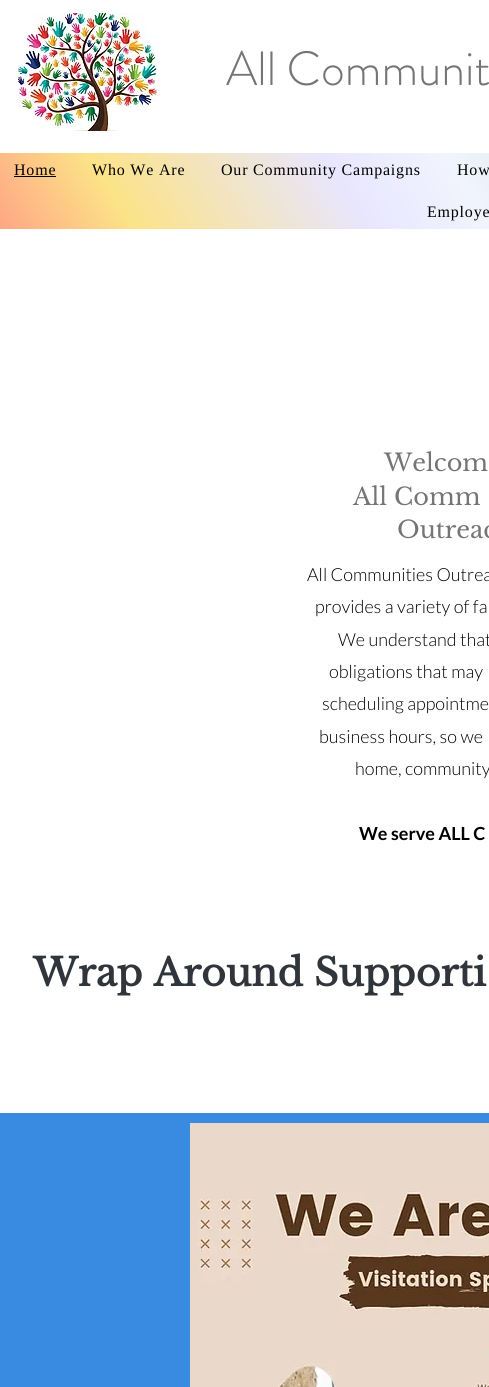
#include <cairo.h>
#include <math.h>
#include <stddef.h>

typedef struct { const char *family; double size; int italic, bold; unsigned color; } style_t;
static cairo_t *ctx;

static void ink(unsigned color) {
    cairo_set_source_rgb(ctx, (color >> 16) / 255.0, (color >> 8 & 255) / 255.0, (color & 255) / 255.0);
}

static void write(double x, double y, const char *s, const style_t *st) {
    cairo_select_font_face(ctx, st->family, st->italic ? CAIRO_FONT_SLANT_ITALIC : CAIRO_FONT_SLANT_NORMAL,
        st->bold ? CAIRO_FONT_WEIGHT_BOLD : CAIRO_FONT_WEIGHT_NORMAL);
    cairo_set_font_size(ctx, st->size);
    ink(st->color);
    cairo_move_to(ctx, x, y);
    cairo_show_text(ctx, s);
}

static void write_spaced(double x, double y, const char *s, double letter, double word) {
    cairo_move_to(ctx, x, y);
    while (*s) {
        char ch[5] = {0};
        int n = 0;
        do ch[n++] = *s++; while ((*s & 0xC0) == 0x80);
        cairo_show_text(ctx, ch);
        cairo_rel_move_to(ctx, letter + word * (*ch == ' '), 0);
    }
}

static void block(double x, double y, double w, double h, unsigned color) {
    ink(color);
    cairo_rectangle(ctx, x, y, w, h);
    cairo_fill(ctx);
}

static void paste(const char *path, double x, double y, double w, double h) {
    cairo_surface_t *image = cairo_image_surface_create_from_png(path);
    cairo_save(ctx);
    cairo_set_source_surface(ctx, image, x, y);
    cairo_rectangle(ctx, x, y, w, h);
    cairo_fill(ctx);
    cairo_restore(ctx);
    cairo_surface_destroy(image);
}

static const style_t s1 = {"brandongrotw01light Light", 48, 0, 0, 0x757575};
static const style_t s2 = {"Libre Baskerville", 24, 0, 0, 0x757575};
static const style_t s3 = {"Lato Light", 18, 0, 0, 0x000000};
static const style_t s4 = {"Lato", 18, 0, 1, 0x000000};
static const style_t s5 = {"Libre Baskerville", 38, 0, 1, 0x2f353a};

int main(void) {
    cairo_surface_t *surface = cairo_image_surface_create(CAIRO_FORMAT_RGB24, 489, 1387);
    ctx = cairo_create(surface);
    cairo_font_options_t *options = cairo_font_options_create();
    cairo_font_options_set_hint_metrics(options, CAIRO_HINT_METRICS_OFF);
    cairo_font_options_set_hint_style(options, CAIRO_HINT_STYLE_NONE);
    cairo_set_font_options(ctx, options);
    cairo_set_miter_limit(ctx, 4);
    cairo_pattern_t *gradient;
    ink(0xffffff);
    cairo_paint(ctx);
    paste("pic1.png", 18, 13, 139, 118);
    write(226, 85, "All Communit", &s1);
    gradient = cairo_pattern_create_linear(121, 422, 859, -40);
    cairo_pattern_add_color_stop_rgba(gradient, 0, 1, 0.651, 0.522, 1);
    cairo_pattern_add_color_stop_rgba(gradient, 0.13, 0.988, 0.89, 0.529, 1);
    cairo_pattern_add_color_stop_rgba(gradient, 0.36, 0.91, 0.902, 1, 1);
    cairo_pattern_add_color_stop_rgba(gradient, 0.48, 0.945, 0.957, 0.992, 1);
    cairo_pattern_add_color_stop_rgba(gradient, 0.59, 0.867, 0.922, 0.937, 1);
    cairo_pattern_add_color_stop_rgba(gradient, 0.76, 0.839, 0.906, 0.925, 1);
    cairo_pattern_add_color_stop_rgba(gradient, 0.86, 0.945, 0.941, 1, 1);
    cairo_pattern_add_color_stop_rgba(gradient, 0.99, 0.663, 0.647, 0.91, 1);
    cairo_set_source(ctx, gradient);
    cairo_pattern_destroy(gradient);
    cairo_rectangle(ctx, 0, 153, 489, 76);
    cairo_fill(ctx);
    cairo_select_font_face(ctx, "Liberation Serif", CAIRO_FONT_SLANT_NORMAL, CAIRO_FONT_WEIGHT_NORMAL);
    cairo_set_font_size(ctx, 16);
    ink(0x000000);
    write_spaced(14, 175, "Home", 0.8, 0);
    block(14, 176, 42, 1, 0x000000);
    write_spaced(92, 175, "Who We Are", 0.8, 0);
    write_spaced(221, 175, "Our Community Campaigns", 0.8, 0);
    write_spaced(457, 175, "How", 0.8, 0);
    write_spaced(427, 217, "Employe", 0.8, 0);
    write(384, 471, "Welcom", &s2);
    write(353, 505, "All Comm", &s2);
    write(397, 538, "Outreac", &s2);
    write(307, 581, "All Communities Outrea", &s3);
    write(315, 613, "provides a variety of fa", &s3);
    write(338, 646, "We understand that", &s3);
    write(329, 678, "obligations that may", &s3);
    write(322, 710, "scheduling appointme", &s3);
    write(319, 743, "business hours, so we", &s3);
    write(355, 775, "home, community", &s3);
    write(359, 840, "We serve ALL C", &s4);
    write(33, 986, "Wrap Around Supporti", &s5);
    block(0, 1113, 489, 274, 0x398be1);
    paste("pic2.png", 190, 1123, 299, 264);
    cairo_surface_write_to_png(surface, "screenshot.png");
    cairo_font_options_destroy(options);
    cairo_destroy(ctx);
    cairo_surface_destroy(surface);
    return 0;
}
